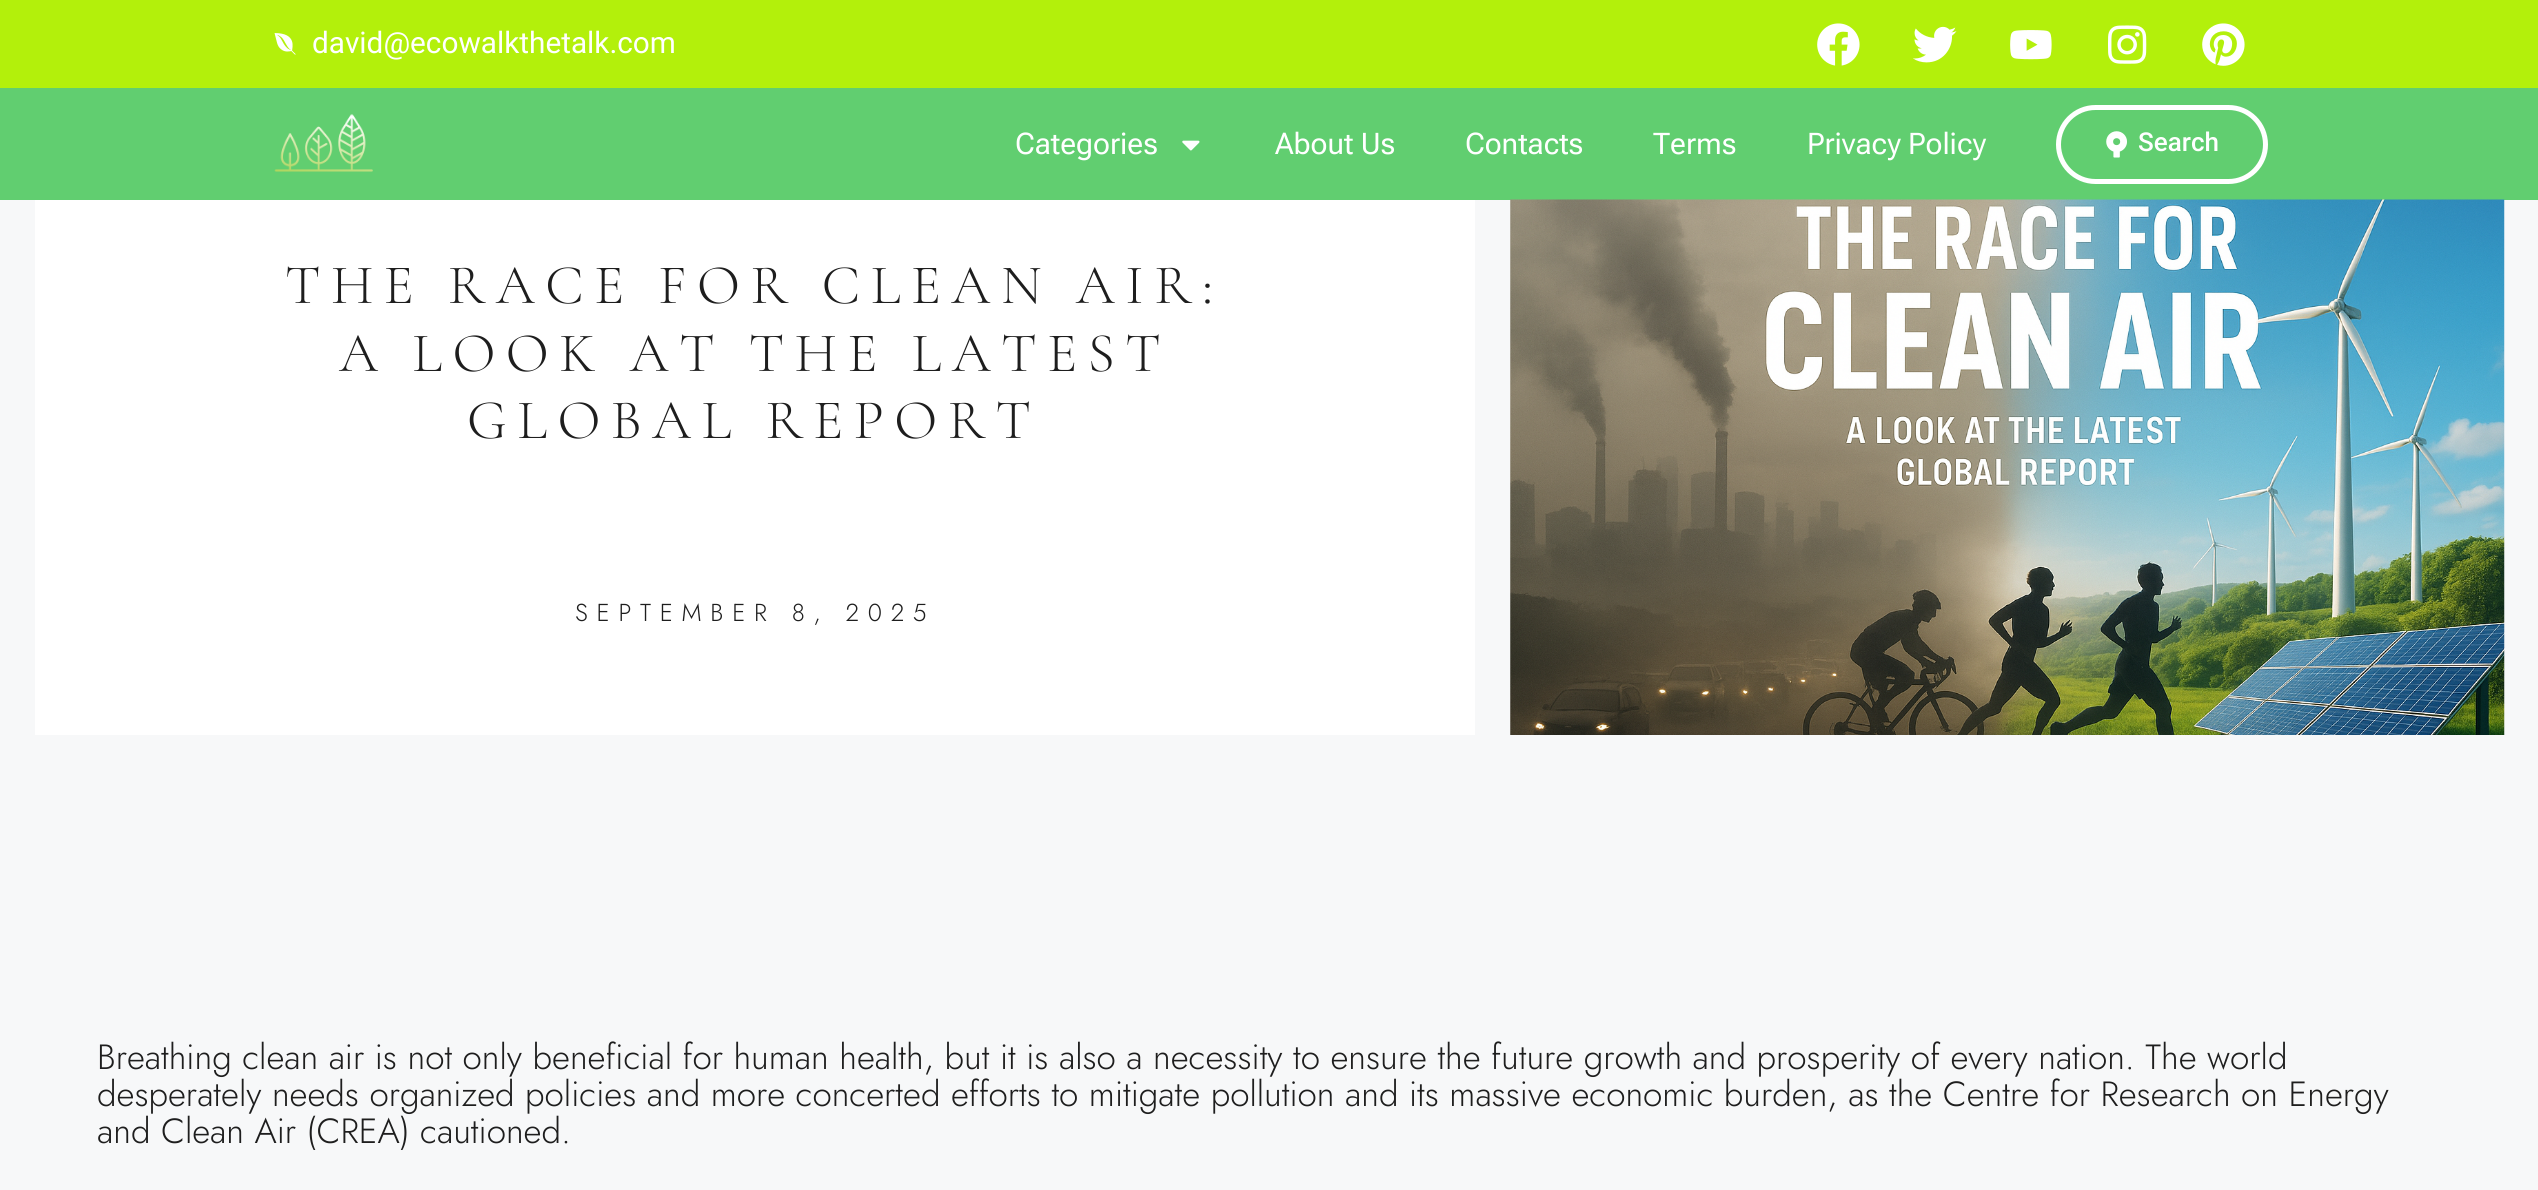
#include <cairo.h>
#include <math.h>
#include <stddef.h>

typedef struct { const char *family; double size; int italic, bold; unsigned color; } style_t;
static cairo_t *ctx;

static void ink(unsigned color) {
    cairo_set_source_rgb(ctx, (color >> 16) / 255.0, (color >> 8 & 255) / 255.0, (color & 255) / 255.0);
}

static void write(double x, double y, const char *s, const style_t *st) {
    cairo_select_font_face(ctx, st->family, st->italic ? CAIRO_FONT_SLANT_ITALIC : CAIRO_FONT_SLANT_NORMAL,
        st->bold ? CAIRO_FONT_WEIGHT_BOLD : CAIRO_FONT_WEIGHT_NORMAL);
    cairo_set_font_size(ctx, st->size);
    ink(st->color);
    cairo_move_to(ctx, x, y);
    cairo_show_text(ctx, s);
}

static void write_spaced(double x, double y, const char *s, double letter, double word) {
    cairo_move_to(ctx, x, y);
    while (*s) {
        char ch[5] = {0};
        int n = 0;
        do ch[n++] = *s++; while ((*s & 0xC0) == 0x80);
        cairo_show_text(ctx, ch);
        cairo_rel_move_to(ctx, letter + word * (*ch == ' '), 0);
    }
}

static void block(double x, double y, double w, double h, unsigned color) {
    ink(color);
    cairo_rectangle(ctx, x, y, w, h);
    cairo_fill(ctx);
}

static void round_path(double x, double y, double w, double h, double r) {
    cairo_new_sub_path(ctx);
    cairo_arc(ctx, x + w - r, y + h - r, r, 0, M_PI / 2);
    cairo_arc(ctx, x + r, y + h - r, r, M_PI / 2, M_PI);
    cairo_arc(ctx, x + r, y + r, r, M_PI, 1.5 * M_PI);
    cairo_arc(ctx, x + w - r, y + r, r, 1.5 * M_PI, 2 * M_PI);
    cairo_close_path(ctx);
}

static void paste(const char *path, double x, double y, double w, double h) {
    cairo_surface_t *image = cairo_image_surface_create_from_png(path);
    cairo_save(ctx);
    cairo_set_source_surface(ctx, image, x, y);
    cairo_rectangle(ctx, x, y, w, h);
    cairo_fill(ctx);
    cairo_restore(ctx);
    cairo_surface_destroy(image);
}

static const style_t s1 = {"Roboto", 29.75, 0, 0, 0xffffff};
static const style_t s2 = {"Roboto Flex", 29.75, 0, 0, 0xffffff};
static const style_t s3 = {"Roboto Medium", 26, 0, 0, 0xffffff};
static const style_t s4 = {"Jost Light", 35, 0, 0, 0x1e1e1e};

int main(void) {
    cairo_surface_t *surface = cairo_image_surface_create(CAIRO_FORMAT_RGB24, 2538, 1190);
    ctx = cairo_create(surface);
    cairo_font_options_t *options = cairo_font_options_create();
    cairo_font_options_set_hint_metrics(options, CAIRO_HINT_METRICS_OFF);
    cairo_font_options_set_hint_style(options, CAIRO_HINT_STYLE_NONE);
    cairo_set_font_options(ctx, options);
    cairo_set_miter_limit(ctx, 4);
    ink(0xf7f8f9);
    cairo_paint(ctx);
    block(0, 0, 2538, 88, 0xb3f00b);
    paste("pic1.png", 274, 33, 22, 22);
    write(312, 53, "david@ecowalkthetalk.com", &s1);
    paste("pic2.png", 1817, 23, 43, 43);
    paste("pic3.png", 1913, 26, 44, 37);
    paste("pic4.png", 2010, 30, 42, 30);
    paste("pic5.png", 2108, 25, 39, 39);
    paste("pic6.png", 2202, 23, 43, 43);
    block(0, 88, 2538, 112, 0x61ce70);
    paste("pic7.png", 274, 114, 99, 58);
    write(1015, 154, "Categories", &s2);
    paste("pic8.png", 1182, 140, 18, 11);
    write(1275, 154, "About Us", &s2);
    write(1465, 154, "Contacts", &s2);
    write(1653, 154, "Terms", &s2);
    write(1807, 154, "Privacy Policy", &s2);
    round_path(2058.5, 107.5, 207, 74, 37);
    cairo_set_line_width(ctx, 5);
    cairo_stroke(ctx);
    paste("pic9.png", 2106, 131, 21, 27);
    write(2138, 151, "Search", &s3);
    block(35, 200, 1440, 535, 0xffffff);
    cairo_select_font_face(ctx, "Cormorant Garamond Light", CAIRO_FONT_SLANT_NORMAL, CAIRO_FONT_WEIGHT_NORMAL);
    cairo_set_font_size(ctx, 56);
    ink(0x1e1e1e);
    write_spaced(285, 303, "THE RACE FOR CLEAN AIR:", 10.5, 0);
    write_spaced(339, 371, "A LOOK AT THE LATEST", 10.5, 0);
    write_spaced(467, 438, "GLOBAL REPORT", 10.5, 0);
    cairo_select_font_face(ctx, "Jost Light", CAIRO_FONT_SLANT_NORMAL, CAIRO_FONT_WEIGHT_NORMAL);
    cairo_set_font_size(ctx, 24.5);
    write_spaced(575, 621, "SEPTEMBER 8, 2025", 8.75, 0);
    paste("pic10.png", 1510, 199, 995, 536);
    write(97, 1069, "Breathing clean air is not only beneficial for human health, but it is also a necessity to ensure the future growth and prosperity of every nation. The world", &s4);
    write(97, 1106, "desperately needs organized policies and more concerted efforts to mitigate pollution and its massive economic burden, as the Centre for Research on Energy", &s4);
    write(97, 1143, "and Clean Air (CREA) cautioned.", &s4);
    cairo_surface_write_to_png(surface, "screenshot.png");
    cairo_font_options_destroy(options);
    cairo_destroy(ctx);
    cairo_surface_destroy(surface);
    return 0;
}
